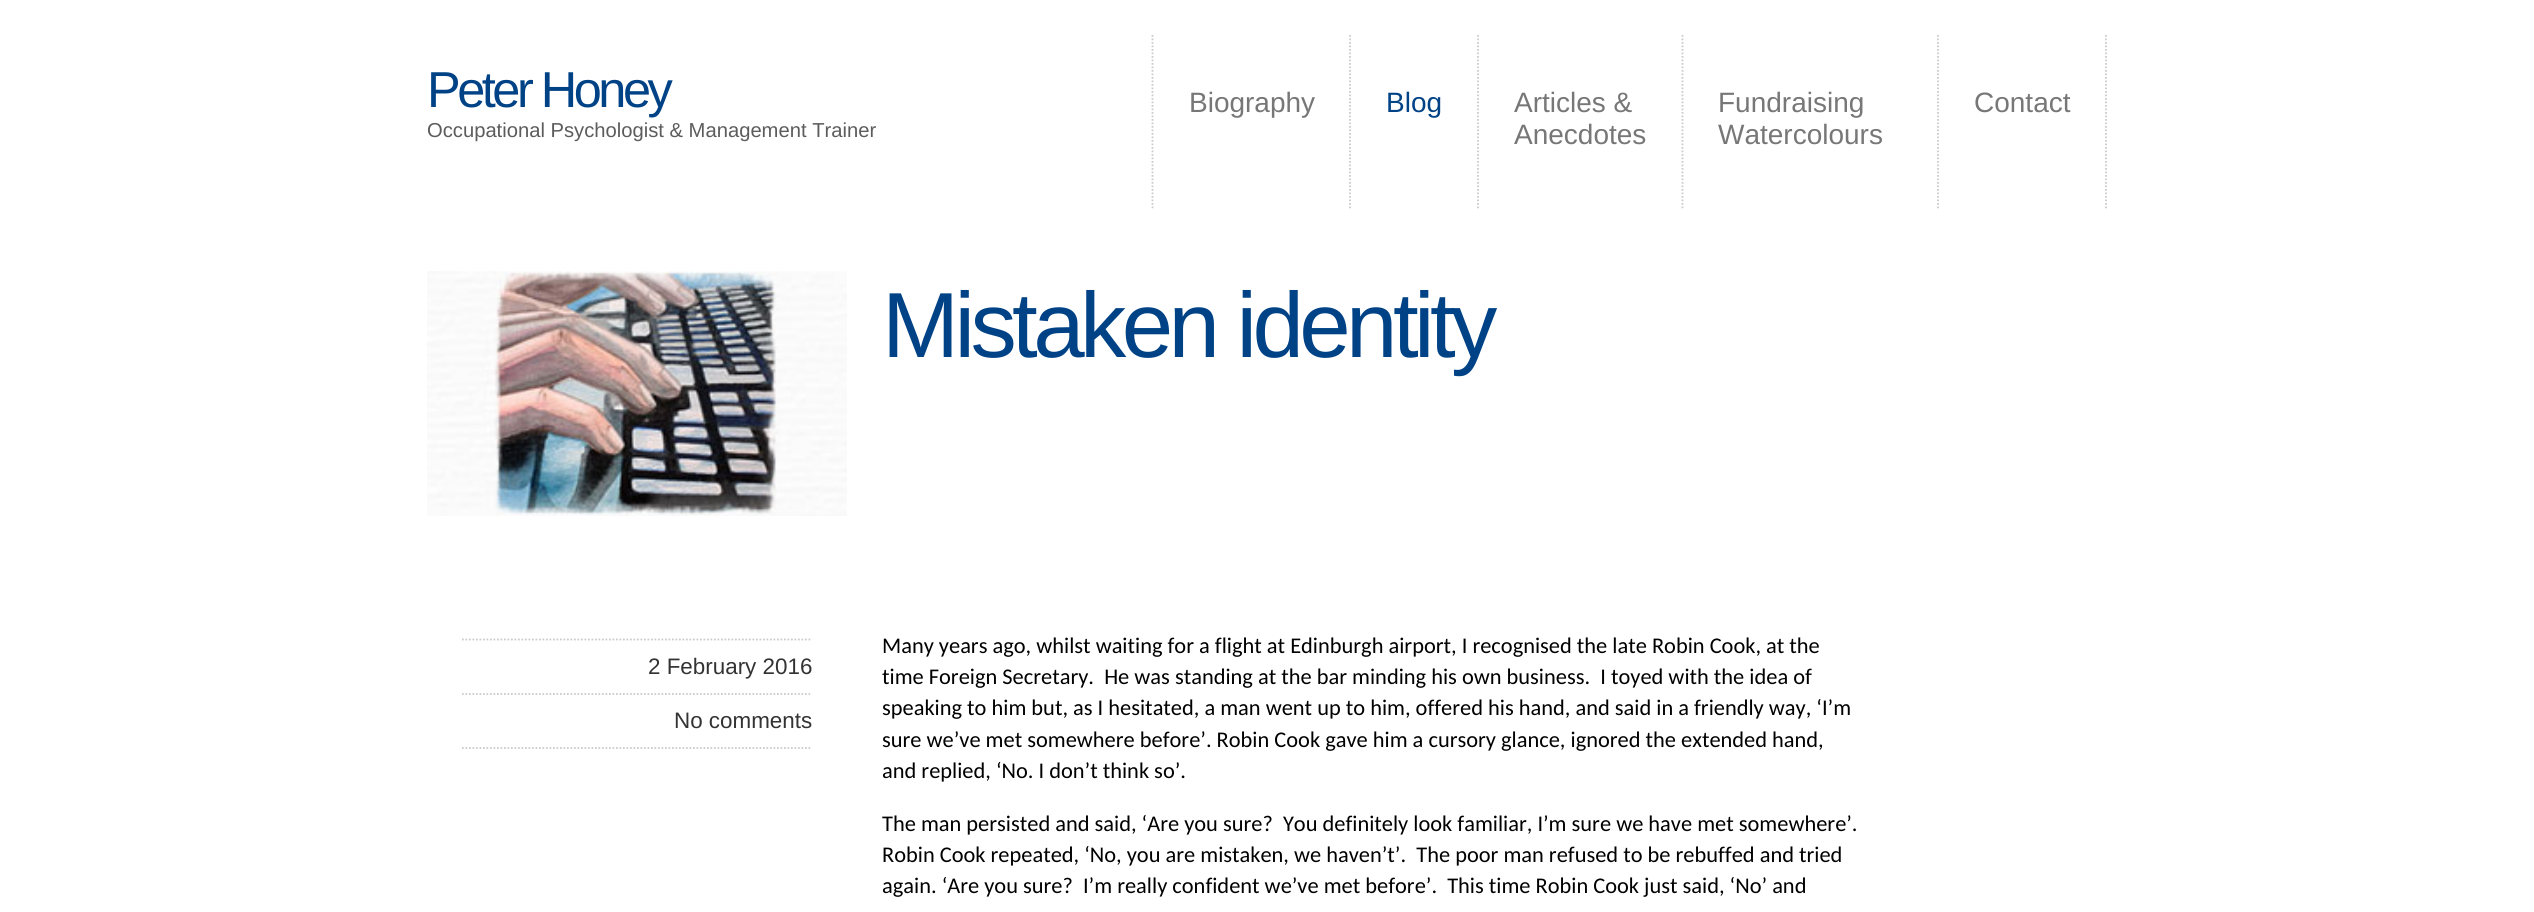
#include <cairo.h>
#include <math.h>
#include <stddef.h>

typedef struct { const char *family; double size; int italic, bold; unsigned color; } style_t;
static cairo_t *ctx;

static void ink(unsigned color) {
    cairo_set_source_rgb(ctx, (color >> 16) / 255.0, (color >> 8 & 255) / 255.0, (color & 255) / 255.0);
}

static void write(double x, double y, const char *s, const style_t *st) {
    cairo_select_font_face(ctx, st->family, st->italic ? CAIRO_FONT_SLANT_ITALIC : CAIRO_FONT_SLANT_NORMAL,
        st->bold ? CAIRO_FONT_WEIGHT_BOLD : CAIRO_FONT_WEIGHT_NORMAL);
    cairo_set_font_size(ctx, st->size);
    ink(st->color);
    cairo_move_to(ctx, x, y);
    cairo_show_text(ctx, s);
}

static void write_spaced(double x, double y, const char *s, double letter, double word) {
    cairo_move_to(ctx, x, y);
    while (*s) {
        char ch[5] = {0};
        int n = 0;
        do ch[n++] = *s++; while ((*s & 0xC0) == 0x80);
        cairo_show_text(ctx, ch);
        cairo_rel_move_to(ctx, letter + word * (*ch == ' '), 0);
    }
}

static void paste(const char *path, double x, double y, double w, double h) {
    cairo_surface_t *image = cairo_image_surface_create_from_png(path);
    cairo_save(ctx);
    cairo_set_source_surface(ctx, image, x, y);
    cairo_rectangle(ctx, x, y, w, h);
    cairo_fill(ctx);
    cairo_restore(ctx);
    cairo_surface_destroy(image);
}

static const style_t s1 = {"Liberation Sans", 20.2, 0, 0, 0x5c5c5c};
static const style_t s2 = {"Liberation Sans", 28, 0, 0, 0x777777};
static const style_t s3 = {"Liberation Sans", 28, 0, 0, 0x004286};
static const style_t s4 = {"Liberation Sans", 22.4, 0, 0, 0x333333};
static const style_t s5 = {"Carlito", 22.4, 0, 0, 0x000000};

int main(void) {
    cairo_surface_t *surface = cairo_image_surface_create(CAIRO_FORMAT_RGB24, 2534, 912);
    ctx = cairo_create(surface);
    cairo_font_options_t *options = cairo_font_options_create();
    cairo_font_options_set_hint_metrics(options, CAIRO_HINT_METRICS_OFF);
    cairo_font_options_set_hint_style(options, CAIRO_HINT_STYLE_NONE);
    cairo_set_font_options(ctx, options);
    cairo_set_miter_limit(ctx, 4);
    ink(0xffffff);
    cairo_paint(ctx);
    cairo_select_font_face(ctx, "Liberation Sans", CAIRO_FONT_SLANT_NORMAL, CAIRO_FONT_WEIGHT_NORMAL);
    cairo_set_font_size(ctx, 50.5);
    ink(0x004286);
    write_spaced(427, 107, "Peter Honey", -3.5, 0);
    write(427, 137, "Occupational Psychologist & Management Trainer", &s1);
    cairo_new_path(ctx);
    cairo_move_to(ctx, 1152.5, 35);
    cairo_line_to(ctx, 1152.5, 210);
    ink(0xcbcbcb);
    cairo_set_line_width(ctx, 1.8);
    cairo_set_dash(ctx, (double[]){1.75, 1.75}, 2, 0);
    cairo_stroke(ctx);
    cairo_new_path(ctx);
    cairo_move_to(ctx, 1350, 35);
    cairo_line_to(ctx, 1350, 210);
    cairo_stroke(ctx);
    write(1189, 112, "Biography", &s2);
    cairo_new_path(ctx);
    cairo_move_to(ctx, 1478, 35);
    cairo_line_to(ctx, 1478, 210);
    ink(0xcbcbcb);
    cairo_stroke(ctx);
    write(1386, 112, "Blog", &s3);
    cairo_new_path(ctx);
    cairo_move_to(ctx, 1682.5, 35);
    cairo_line_to(ctx, 1682.5, 210);
    ink(0xcbcbcb);
    cairo_stroke(ctx);
    write(1514, 112, "Articles &", &s2);
    write(1514, 144, "Anecdotes", &s2);
    cairo_new_path(ctx);
    cairo_move_to(ctx, 1938, 35);
    cairo_line_to(ctx, 1938, 210);
    ink(0xcbcbcb);
    cairo_stroke(ctx);
    write(1718, 112, "Fundraising", &s2);
    write(1718, 144, "Watercolours", &s2);
    cairo_new_path(ctx);
    cairo_move_to(ctx, 2106, 35);
    cairo_line_to(ctx, 2106, 210);
    ink(0xcbcbcb);
    cairo_stroke(ctx);
    write(1974, 112, "Contact", &s2);
    paste("pic1.png", 427, 271, 420, 245);
    cairo_set_font_size(ctx, 92.5);
    ink(0x004286);
    write_spaced(882, 357, "Mistaken identity", -4.6, 0);
    cairo_new_path(ctx);
    cairo_move_to(ctx, 462, 748);
    cairo_line_to(ctx, 812, 748);
    ink(0xcbcbcb);
    cairo_stroke(ctx);
    cairo_new_path(ctx);
    cairo_move_to(ctx, 462, 639.5);
    cairo_line_to(ctx, 812, 639.5);
    cairo_stroke(ctx);
    write(648, 674, "2 February 2016", &s4);
    cairo_new_path(ctx);
    cairo_move_to(ctx, 462, 694);
    cairo_line_to(ctx, 812, 694);
    ink(0xcbcbcb);
    cairo_stroke(ctx);
    write(674, 728, "No comments", &s4);
    write(882, 653, "Many years ago, whilst waiting for a flight at Edinburgh airport, I recognised the late Robin Cook, at the", &s5);
    write(882, 684, "time Foreign Secretary.  He was standing at the bar minding his own business.  I toyed with the idea of", &s5);
    write(882, 715, "speaking to him but, as I hesitated, a man went up to him, offered his hand, and said in a friendly way, ‘I’m", &s5);
    write(882, 747, "sure we’ve met somewhere before’. Robin Cook gave him a cursory glance, ignored the extended hand,", &s5);
    write(882, 778, "and replied, ‘No. I don’t think so’.", &s5);
    write(882, 831, "The man persisted and said, ‘Are you sure?  You definitely look familiar, I’m sure we have met somewhere’.", &s5);
    write(882, 862, "Robin Cook repeated, ‘No, you are mistaken, we haven’t’.  The poor man refused to be rebuffed and tried", &s5);
    write(882, 893, "again. ‘Are you sure?  I’m really confident we’ve met before’.  This time Robin Cook just said, ‘No’ and", &s5);
    cairo_surface_write_to_png(surface, "screenshot.png");
    cairo_font_options_destroy(options);
    cairo_destroy(ctx);
    cairo_surface_destroy(surface);
    return 0;
}
